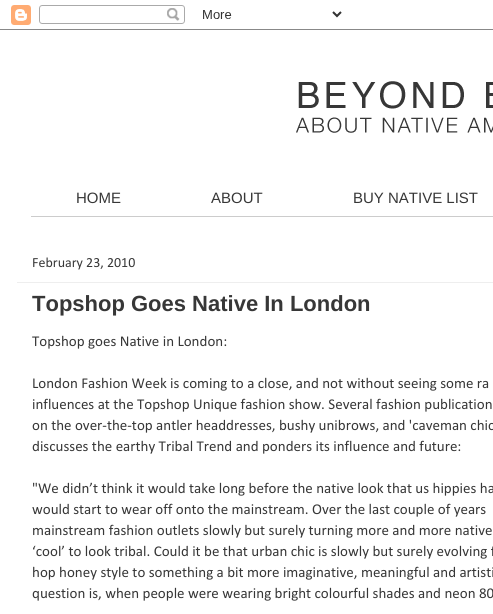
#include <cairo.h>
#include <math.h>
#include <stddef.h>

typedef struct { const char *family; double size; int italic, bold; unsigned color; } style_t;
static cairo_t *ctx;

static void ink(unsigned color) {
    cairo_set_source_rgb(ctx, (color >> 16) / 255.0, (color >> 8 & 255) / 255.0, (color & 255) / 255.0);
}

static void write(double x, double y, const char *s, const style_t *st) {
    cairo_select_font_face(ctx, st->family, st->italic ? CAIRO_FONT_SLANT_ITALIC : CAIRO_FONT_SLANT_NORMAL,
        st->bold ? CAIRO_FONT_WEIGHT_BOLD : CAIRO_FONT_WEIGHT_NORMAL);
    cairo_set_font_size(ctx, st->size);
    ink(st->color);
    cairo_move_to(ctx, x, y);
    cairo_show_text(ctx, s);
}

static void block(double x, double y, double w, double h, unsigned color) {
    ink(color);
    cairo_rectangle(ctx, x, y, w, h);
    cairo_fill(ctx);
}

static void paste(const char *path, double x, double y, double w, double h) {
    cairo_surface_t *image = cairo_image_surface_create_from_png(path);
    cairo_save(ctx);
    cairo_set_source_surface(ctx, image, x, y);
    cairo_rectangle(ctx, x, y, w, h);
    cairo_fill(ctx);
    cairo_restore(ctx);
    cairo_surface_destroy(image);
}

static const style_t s1 = {"Liberation Sans", 15, 0, 0, 0x373737};
static const style_t s2 = {"Calibri", 14, 0, 0, 0x373737};
static const style_t s3 = {"Liberation Sans", 22, 0, 1, 0x373737};
static const style_t s4 = {"Calibri", 15, 0, 0, 0x373737};

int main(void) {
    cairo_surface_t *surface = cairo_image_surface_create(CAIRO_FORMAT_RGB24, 493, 614);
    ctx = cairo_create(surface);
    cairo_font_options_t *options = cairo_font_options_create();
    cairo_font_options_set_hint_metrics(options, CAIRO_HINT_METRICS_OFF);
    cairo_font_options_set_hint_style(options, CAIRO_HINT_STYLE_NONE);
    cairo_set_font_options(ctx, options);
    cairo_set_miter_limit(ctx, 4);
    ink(0xffffff);
    cairo_paint(ctx);
    paste("pic1.png", 0, 5, 493, 25);
    paste("pic2.png", 296, 81, 197, 52);
    block(31, 216, 462, 1, 0xcccccc);
    write(76, 203, "HOME", &s1);
    write(211, 203, "ABOUT", &s1);
    write(353, 203, "BUY NATIVE LIST", &s1);
    write(32, 267, "February 23, 2010", &s2);
    block(17, 282, 476, 1, 0xeeeeee);
    write(32, 311, "Topshop Goes Native In London", &s3);
    write(32, 346, "Topshop goes Native in London:", &s4);
    write(32, 388, "London Fashion Week is coming to a close, and not without seeing some ra", &s4);
    write(32, 409, "influences at the Topshop Unique fashion show. Several fashion publication", &s4);
    write(32, 430, "on the over-the-top antler headdresses, bushy unibrows, and 'caveman chic", &s4);
    write(32, 451, "discusses the earthy Tribal Trend and ponders its influence and future:", &s4);
    write(32, 493, "\"We didn’t think it would take long before the native look that us hippies ha", &s4);
    write(32, 514, "would start to wear off onto the mainstream. Over the last couple of years", &s4);
    write(32, 535, "mainstream fashion outlets slowly but surely turning more and more native", &s4);
    write(32, 556, "‘cool’ to look tribal. Could it be that urban chic is slowly but surely evolving f", &s4);
    write(32, 577, "hop honey style to something a bit more imaginative, meaningful and artisti", &s4);
    write(32, 598, "question is, when people were wearing bright colourful shades and neon 80", &s4);
    cairo_surface_write_to_png(surface, "screenshot.png");
    cairo_font_options_destroy(options);
    cairo_destroy(ctx);
    cairo_surface_destroy(surface);
    return 0;
}
